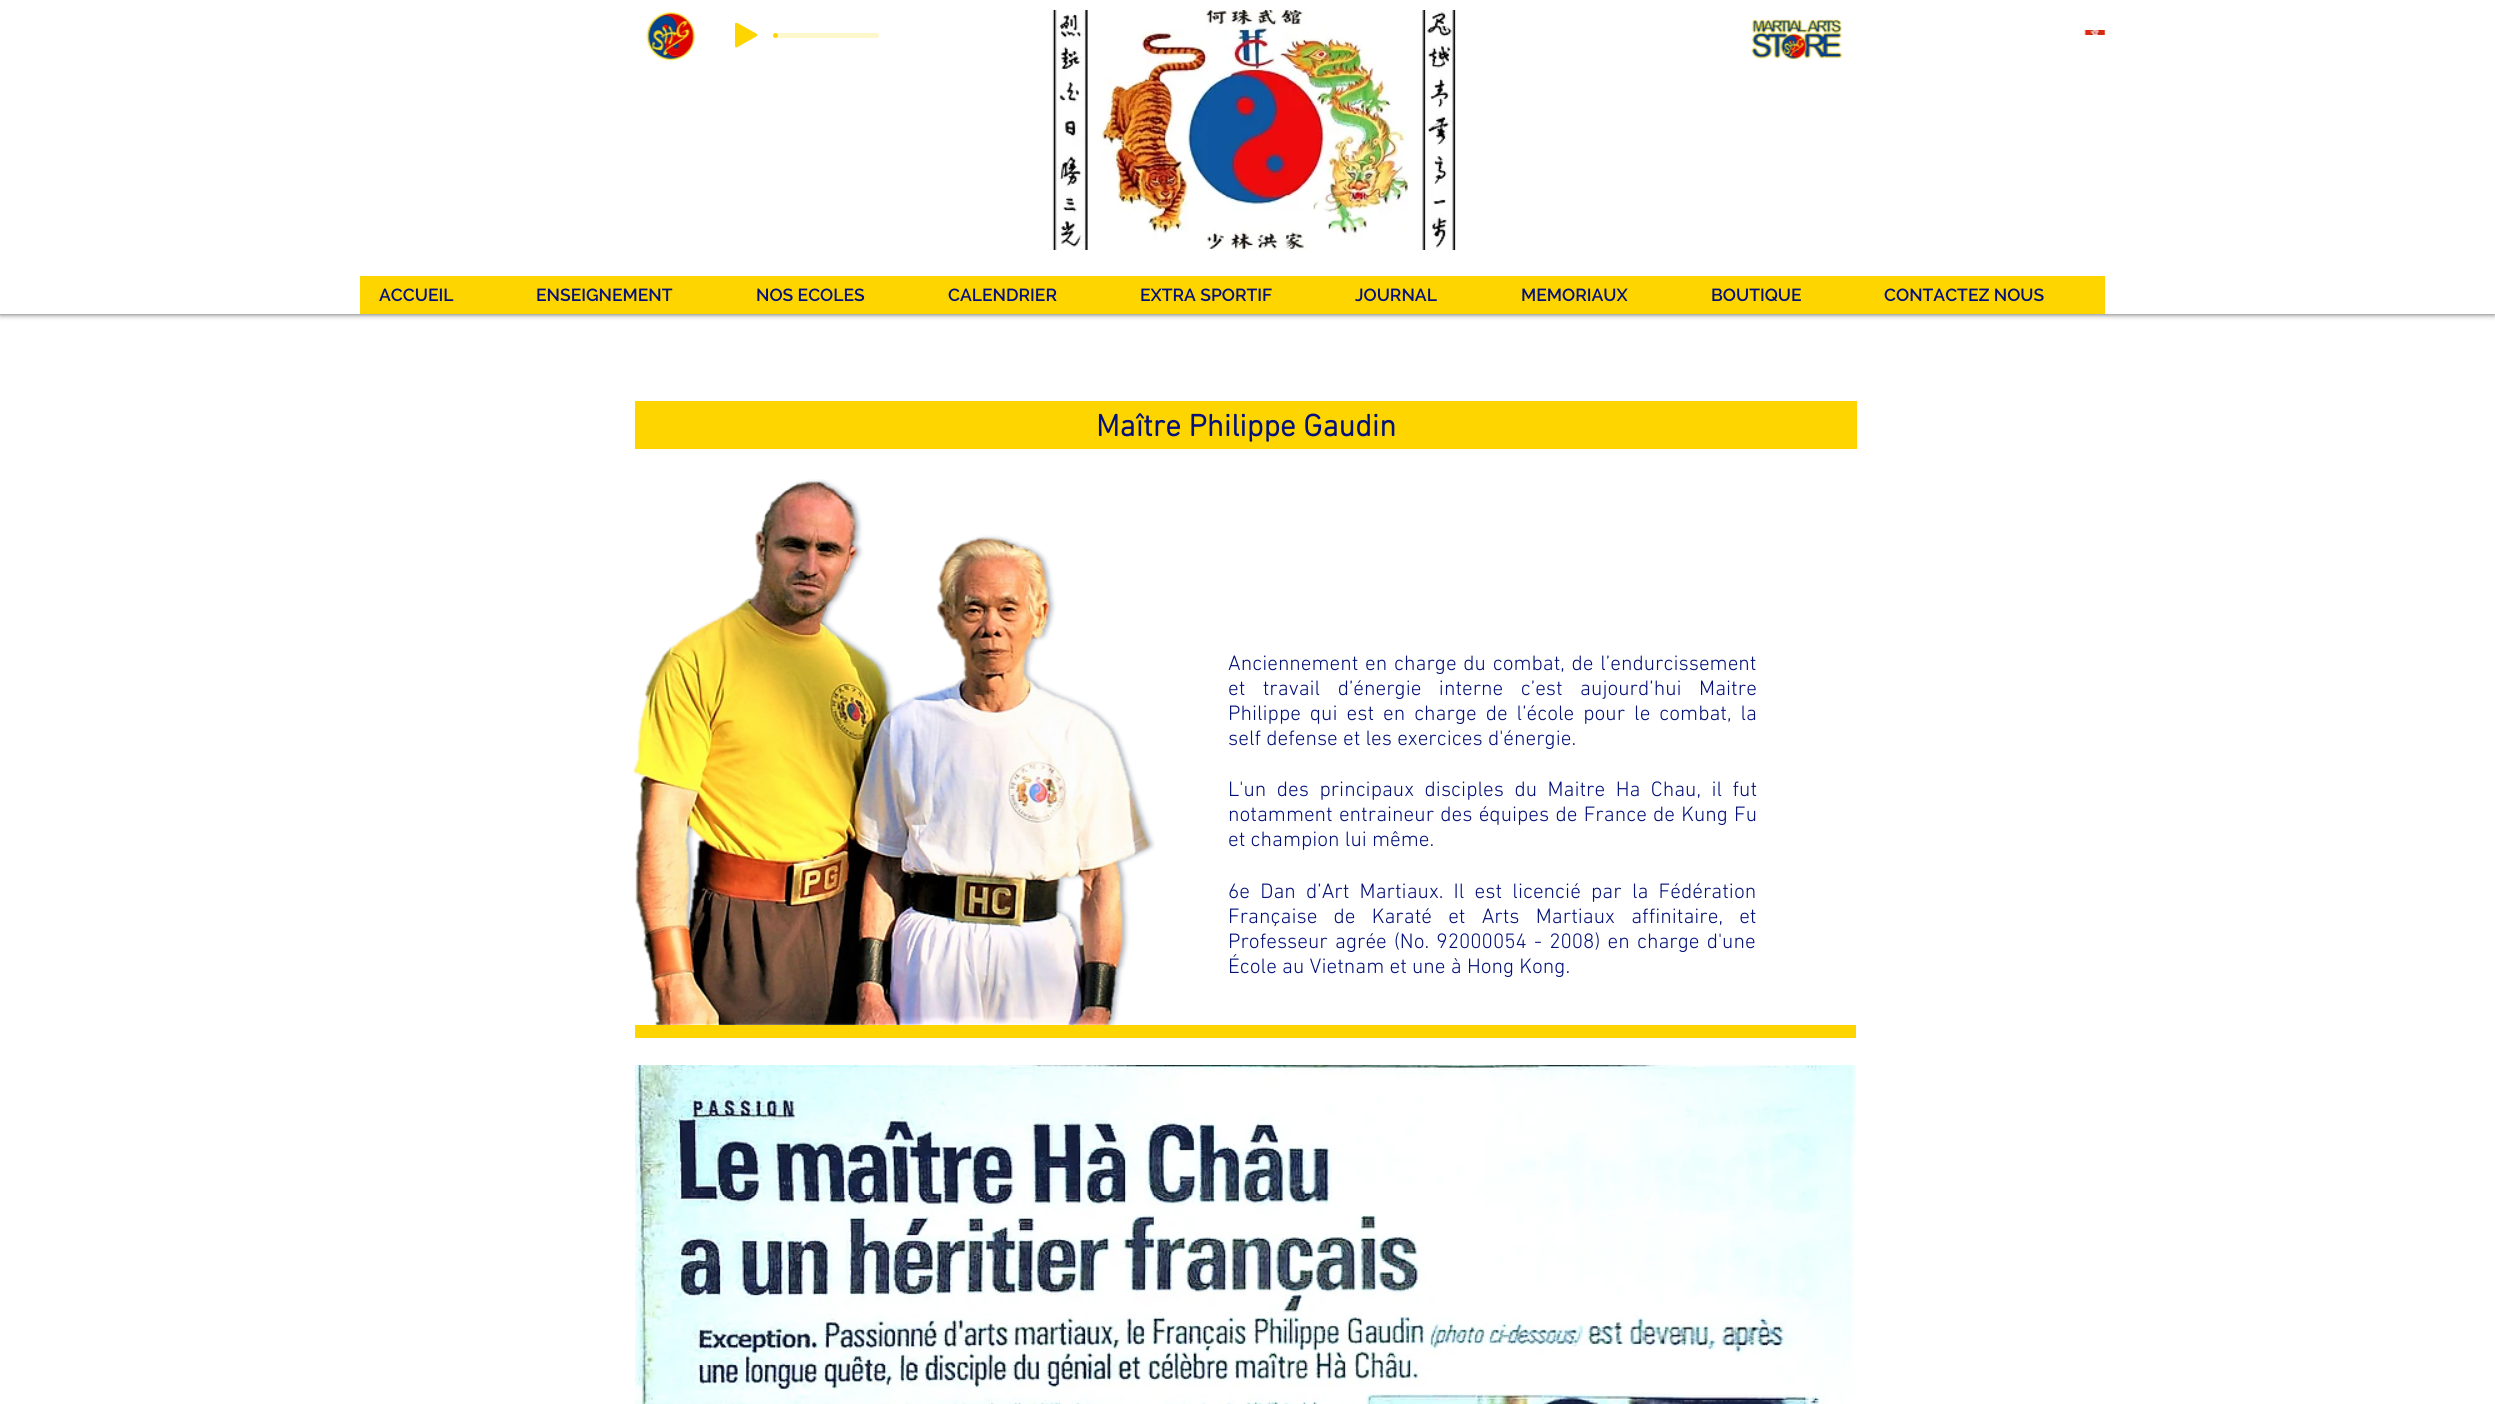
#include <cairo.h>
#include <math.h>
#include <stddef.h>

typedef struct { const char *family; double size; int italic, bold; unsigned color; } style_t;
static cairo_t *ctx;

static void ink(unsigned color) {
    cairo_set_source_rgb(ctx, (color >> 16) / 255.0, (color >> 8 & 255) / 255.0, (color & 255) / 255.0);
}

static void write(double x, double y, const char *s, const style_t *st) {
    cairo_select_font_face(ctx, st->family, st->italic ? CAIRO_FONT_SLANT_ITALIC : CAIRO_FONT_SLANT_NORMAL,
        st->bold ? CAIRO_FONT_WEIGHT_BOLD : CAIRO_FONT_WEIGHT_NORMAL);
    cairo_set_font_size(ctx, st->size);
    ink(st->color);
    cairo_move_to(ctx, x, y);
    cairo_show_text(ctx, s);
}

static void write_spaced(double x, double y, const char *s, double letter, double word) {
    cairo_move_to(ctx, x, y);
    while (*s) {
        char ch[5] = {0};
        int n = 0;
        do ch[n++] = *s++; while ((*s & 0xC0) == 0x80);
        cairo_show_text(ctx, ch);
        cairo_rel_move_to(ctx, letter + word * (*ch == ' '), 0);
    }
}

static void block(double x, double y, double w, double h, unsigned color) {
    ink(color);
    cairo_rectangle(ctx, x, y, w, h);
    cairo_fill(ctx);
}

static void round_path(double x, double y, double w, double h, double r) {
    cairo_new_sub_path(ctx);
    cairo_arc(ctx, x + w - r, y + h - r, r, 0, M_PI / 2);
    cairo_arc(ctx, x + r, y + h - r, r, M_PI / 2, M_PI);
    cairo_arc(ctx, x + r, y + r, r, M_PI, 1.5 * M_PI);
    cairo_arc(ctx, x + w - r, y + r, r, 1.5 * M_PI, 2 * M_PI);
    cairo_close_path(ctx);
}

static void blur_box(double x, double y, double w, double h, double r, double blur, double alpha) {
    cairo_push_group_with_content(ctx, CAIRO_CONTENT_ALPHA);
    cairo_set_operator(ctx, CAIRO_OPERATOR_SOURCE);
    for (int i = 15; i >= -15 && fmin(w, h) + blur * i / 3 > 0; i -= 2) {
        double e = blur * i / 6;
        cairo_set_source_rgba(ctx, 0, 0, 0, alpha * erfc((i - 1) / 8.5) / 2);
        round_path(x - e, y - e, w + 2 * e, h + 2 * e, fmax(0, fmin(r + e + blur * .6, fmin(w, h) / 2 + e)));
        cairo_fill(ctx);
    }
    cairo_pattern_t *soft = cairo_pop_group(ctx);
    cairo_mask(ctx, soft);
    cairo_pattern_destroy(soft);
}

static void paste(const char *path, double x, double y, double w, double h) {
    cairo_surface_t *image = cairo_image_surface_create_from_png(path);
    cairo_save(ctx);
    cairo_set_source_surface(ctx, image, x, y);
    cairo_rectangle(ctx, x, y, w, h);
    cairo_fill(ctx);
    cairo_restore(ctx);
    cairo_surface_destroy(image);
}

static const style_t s1 = {"Raleway SemiBold", 17.5, 0, 0, 0x041178};
static const style_t s2 = {"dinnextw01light", 31.25, 0, 1, 0x041178};
static const style_t s3 = {"dinnextw01light Light", 21.25, 0, 0, 0x041178};

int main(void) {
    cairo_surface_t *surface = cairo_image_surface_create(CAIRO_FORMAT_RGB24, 2495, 1404);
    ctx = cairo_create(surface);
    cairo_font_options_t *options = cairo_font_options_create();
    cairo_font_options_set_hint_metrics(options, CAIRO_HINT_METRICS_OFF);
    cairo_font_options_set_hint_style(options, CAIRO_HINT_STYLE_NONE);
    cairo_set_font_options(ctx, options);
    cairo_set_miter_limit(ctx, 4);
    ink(0xffffff);
    cairo_paint(ctx);
    ink(0x000000);
    blur_box(0, 0, 2495, 314, 0, 3, 0.7);
    block(0, 0, 2495, 314, 0xffffff);
    paste("pic1.png", 646, 11, 50, 50);
    paste("pic2.png", 735, 23, 23, 25);
    ink(0xfff7cc);
    round_path(775, 33, 104, 5, 2.5);
    cairo_fill(ctx);
    ink(0xffd500);
    cairo_arc(ctx, 775.5, 35.5, 2.5, 0, 2 * M_PI);
    cairo_fill(ctx);
    paste("pic3.png", 1052, 10, 404, 240);
    paste("pic4.png", 1750, 19, 93, 42);
    paste("pic5.png", 2084, 30, 22, 5);
    block(360, 276, 1745, 38, 0xffd500);
    write(379, 301, "ACCUEIL", &s1);
    write(536, 301, "ENSEIGNEMENT", &s1);
    write(756, 301, "NOS ECOLES", &s1);
    write(948, 301, "CALENDRIER", &s1);
    write(1140, 301, "EXTRA SPORTIF", &s1);
    write(1355, 301, "JOURNAL", &s1);
    write(1521, 301, "MEMORIAUX", &s1);
    write(1711, 301, "BOUTIQUE", &s1);
    write(1884, 301, "CONTACTEZ NOUS", &s1);
    block(635, 401, 1222, 48, 0xffd500);
    write(1096, 436, "Maître Philippe Gaudin", &s2);
    paste("pic6.png", 632, 479, 523, 546);
    cairo_select_font_face(ctx, "dinnextw01light Light", CAIRO_FONT_SLANT_NORMAL, CAIRO_FONT_WEIGHT_NORMAL);
    cairo_set_font_size(ctx, 21.25);
    write_spaced(1228, 670, "Anciennement en charge du combat, de l’endurcissement", 0, 1.5);
    write_spaced(1228, 695, "et travail d’énergie interne c’est aujourd’hui Maitre", 0, 12.25);
    write_spaced(1228, 720, "Philippe qui est en charge de l’école pour le combat, la", 0, 3.75);
    write(1228, 745, "self defense et les exercices d'énergie.", &s3);
    write_spaced(1228, 796, "L'un des principaux disciples du Maitre Ha Chau, il fut", 0, 5.25);
    write_spaced(1228, 821, "notamment entraineur des équipes de France de Kung Fu", 0, 1);
    write(1228, 846, "et champion lui même.", &s3);
    write_spaced(1228, 898, "6e Dan d’Art Martiaux. Il est licencié par la Fédération", 0, 5);
    write_spaced(1228, 923, "Française de Karaté et Arts Martiaux affinitaire, et", 0, 11);
    write_spaced(1228, 948, "Professeur agrée (No. 92000054 - 2008) en charge d'une", 0, 2);
    write(1228, 973, "École au Vietnam et une à Hong Kong.", &s3);
    block(635, 1025, 1221, 13, 0xffd500);
    paste("pic7.png", 635, 1065, 1221, 339);
    cairo_surface_write_to_png(surface, "screenshot.png");
    cairo_font_options_destroy(options);
    cairo_destroy(ctx);
    cairo_surface_destroy(surface);
    return 0;
}
